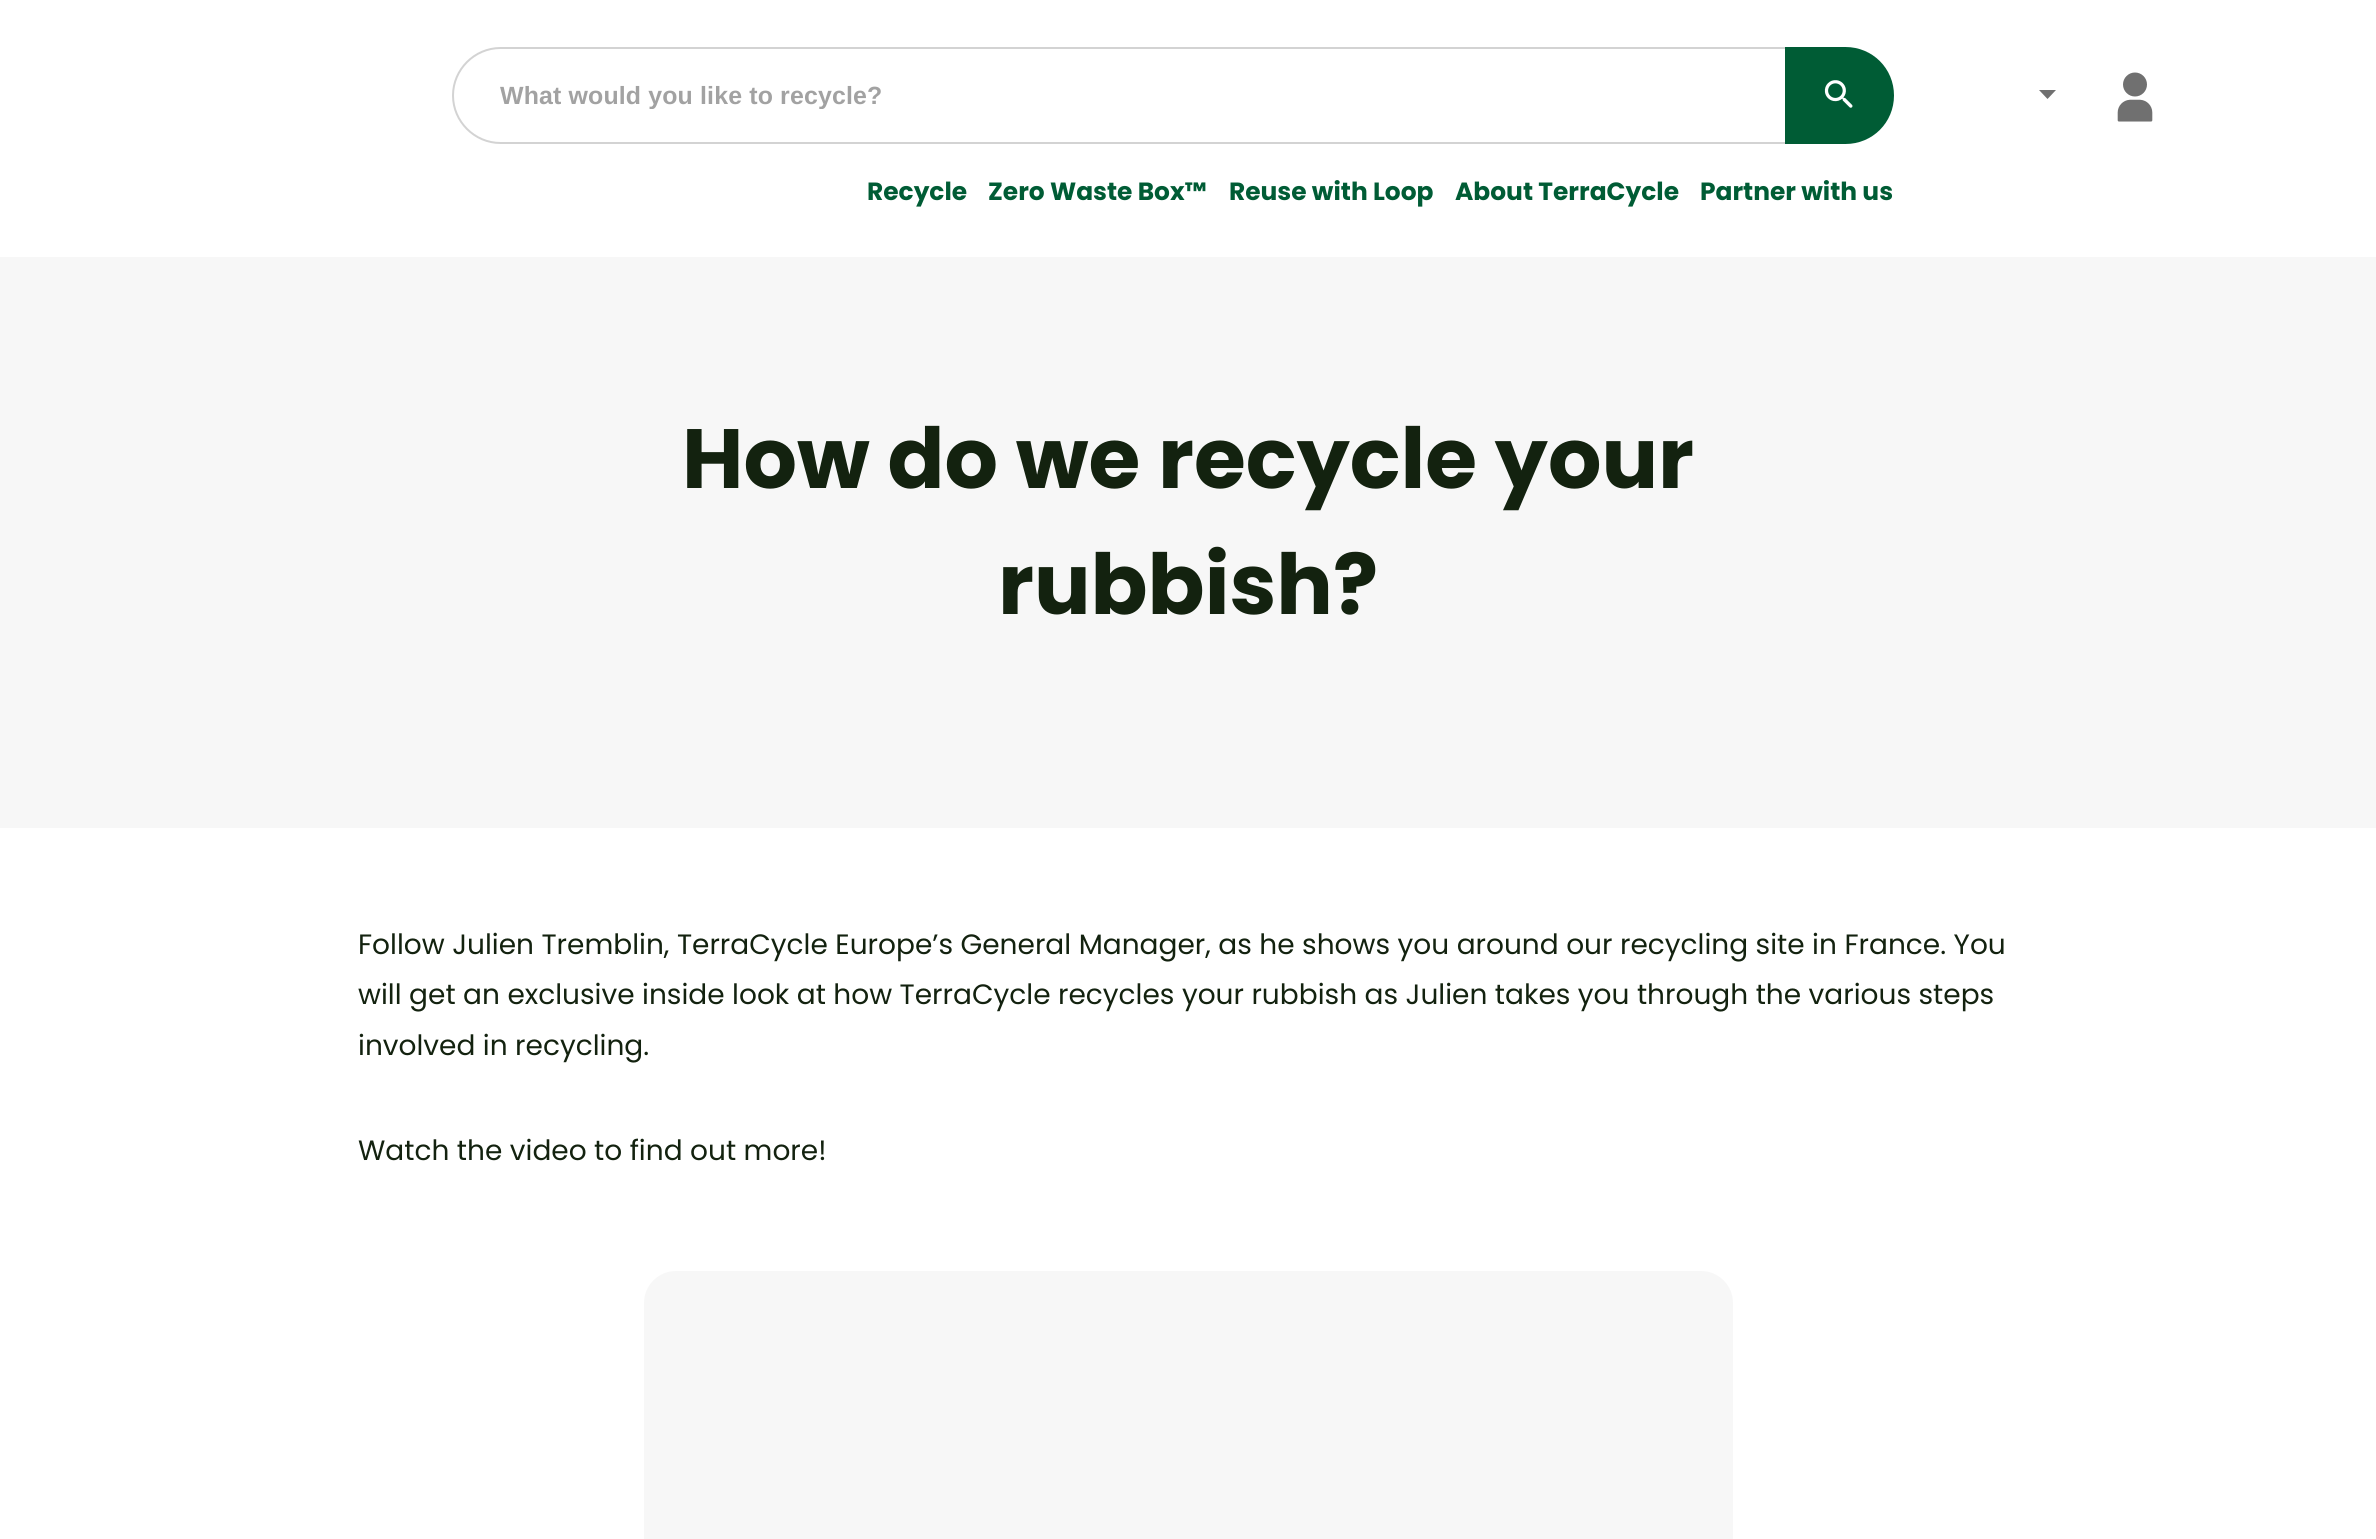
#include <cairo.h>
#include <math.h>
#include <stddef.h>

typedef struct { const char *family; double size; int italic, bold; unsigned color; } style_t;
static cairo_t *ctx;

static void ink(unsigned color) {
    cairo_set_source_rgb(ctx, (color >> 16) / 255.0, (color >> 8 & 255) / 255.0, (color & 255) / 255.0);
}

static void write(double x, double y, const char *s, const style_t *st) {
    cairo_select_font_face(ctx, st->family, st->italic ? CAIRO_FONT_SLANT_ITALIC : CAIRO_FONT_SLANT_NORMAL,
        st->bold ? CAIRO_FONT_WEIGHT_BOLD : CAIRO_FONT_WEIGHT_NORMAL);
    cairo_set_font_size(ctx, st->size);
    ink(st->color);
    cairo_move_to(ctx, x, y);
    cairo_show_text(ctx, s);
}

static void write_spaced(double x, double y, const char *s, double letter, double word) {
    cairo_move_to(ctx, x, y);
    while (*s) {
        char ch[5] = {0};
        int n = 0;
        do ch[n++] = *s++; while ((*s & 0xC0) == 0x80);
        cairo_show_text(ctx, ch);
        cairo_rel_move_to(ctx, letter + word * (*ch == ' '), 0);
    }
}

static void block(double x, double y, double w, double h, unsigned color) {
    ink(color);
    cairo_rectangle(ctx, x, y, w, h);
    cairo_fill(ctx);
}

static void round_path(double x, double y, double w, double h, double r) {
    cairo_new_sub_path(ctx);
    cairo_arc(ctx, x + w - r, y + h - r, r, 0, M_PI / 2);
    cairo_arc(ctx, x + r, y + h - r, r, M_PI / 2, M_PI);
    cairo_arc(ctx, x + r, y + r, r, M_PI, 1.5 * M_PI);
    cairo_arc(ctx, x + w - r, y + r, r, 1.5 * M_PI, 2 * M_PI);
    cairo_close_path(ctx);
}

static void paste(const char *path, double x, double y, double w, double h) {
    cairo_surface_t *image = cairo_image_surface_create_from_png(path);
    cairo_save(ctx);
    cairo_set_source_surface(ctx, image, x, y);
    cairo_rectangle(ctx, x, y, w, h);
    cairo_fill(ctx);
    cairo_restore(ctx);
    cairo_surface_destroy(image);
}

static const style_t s1 = {"Poppins", 24.9, 0, 1, 0x005c35};
static const style_t s2 = {"Poppins", 84, 0, 1, 0x13220f};
static const style_t s3 = {"Poppins", 28, 0, 0, 0x13220f};

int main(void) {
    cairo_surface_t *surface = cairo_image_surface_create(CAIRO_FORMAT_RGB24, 2376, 1539);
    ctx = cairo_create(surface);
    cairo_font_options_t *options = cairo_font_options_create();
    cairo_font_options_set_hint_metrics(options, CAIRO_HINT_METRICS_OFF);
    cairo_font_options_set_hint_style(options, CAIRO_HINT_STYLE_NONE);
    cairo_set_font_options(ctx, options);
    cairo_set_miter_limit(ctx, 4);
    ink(0xffffff);
    cairo_paint(ctx);
    cairo_new_path(ctx);
    cairo_move_to(ctx, 500.5, 48);
    cairo_line_to(ctx, 1786, 48);
    cairo_line_to(ctx, 1786, 143);
    cairo_line_to(ctx, 500.5, 143);
    cairo_curve_to(ctx, 474.5, 143, 453, 121.5, 453, 95.5);
    cairo_curve_to(ctx, 453, 69.5, 474.5, 48, 500.5, 48);
    cairo_close_path(ctx);
    ink(0xd3d3d3);
    cairo_stroke(ctx);
    cairo_save(ctx);
    cairo_rectangle(ctx, 499, 81, 1207, 28);
    cairo_clip(ctx);
    cairo_select_font_face(ctx, "Liberation Sans", CAIRO_FONT_SLANT_NORMAL, CAIRO_FONT_WEIGHT_BOLD);
    cairo_set_font_size(ctx, 24.9);
    ink(0xa2a2a2);
    write_spaced(500, 104, "What would you like to recycle?", 0.15, 0);
    cairo_restore(ctx);
    ink(0x005c35);
    cairo_new_path(ctx);
    cairo_move_to(ctx, 1785, 47);
    cairo_line_to(ctx, 1845.5, 47);
    cairo_curve_to(ctx, 1872.5, 47, 1894, 68.5, 1894, 95.5);
    cairo_curve_to(ctx, 1894, 122.5, 1872.5, 144, 1845.5, 144);
    cairo_line_to(ctx, 1785, 144);
    cairo_close_path(ctx);
    cairo_fill(ctx);
    paste("pic1.png", 1824, 80, 29, 28);
    write(867, 200, "Recycle", &s1);
    write(988, 200, "Zero Waste Box™", &s1);
    write(1229, 200, "Reuse with Loop", &s1);
    write(1455, 200, "About TerraCycle", &s1);
    write(1700, 200, "Partner with us", &s1);
    ink(0x707070);
    cairo_new_path(ctx);
    cairo_move_to(ctx, 2039, 90);
    cairo_line_to(ctx, 2056, 90);
    cairo_line_to(ctx, 2047.5, 99);
    cairo_close_path(ctx);
    cairo_fill(ctx);
    paste("pic2.png", 2117, 72, 36, 50);
    block(0, 257, 2376, 571, 0xf7f7f7);
    write(682, 488, "How do we recycle your", &s2);
    write(998, 614, "rubbish?", &s2);
    write(358, 954, "Follow Julien Tremblin, TerraCycle Europe’s General Manager, as he shows you around our recycling site in France. You", &s3);
    write(358, 1004, "will get an exclusive inside look at how TerraCycle recycles your rubbish as Julien takes you through the various steps", &s3);
    write(358, 1055, "involved in recycling.", &s3);
    write(358, 1160, "Watch the video to find out more!", &s3);
    ink(0xf7f7f7);
    round_path(644, 1271, 1089, 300, 32);
    cairo_fill(ctx);
    cairo_surface_write_to_png(surface, "screenshot.png");
    cairo_font_options_destroy(options);
    cairo_destroy(ctx);
    cairo_surface_destroy(surface);
    return 0;
}
